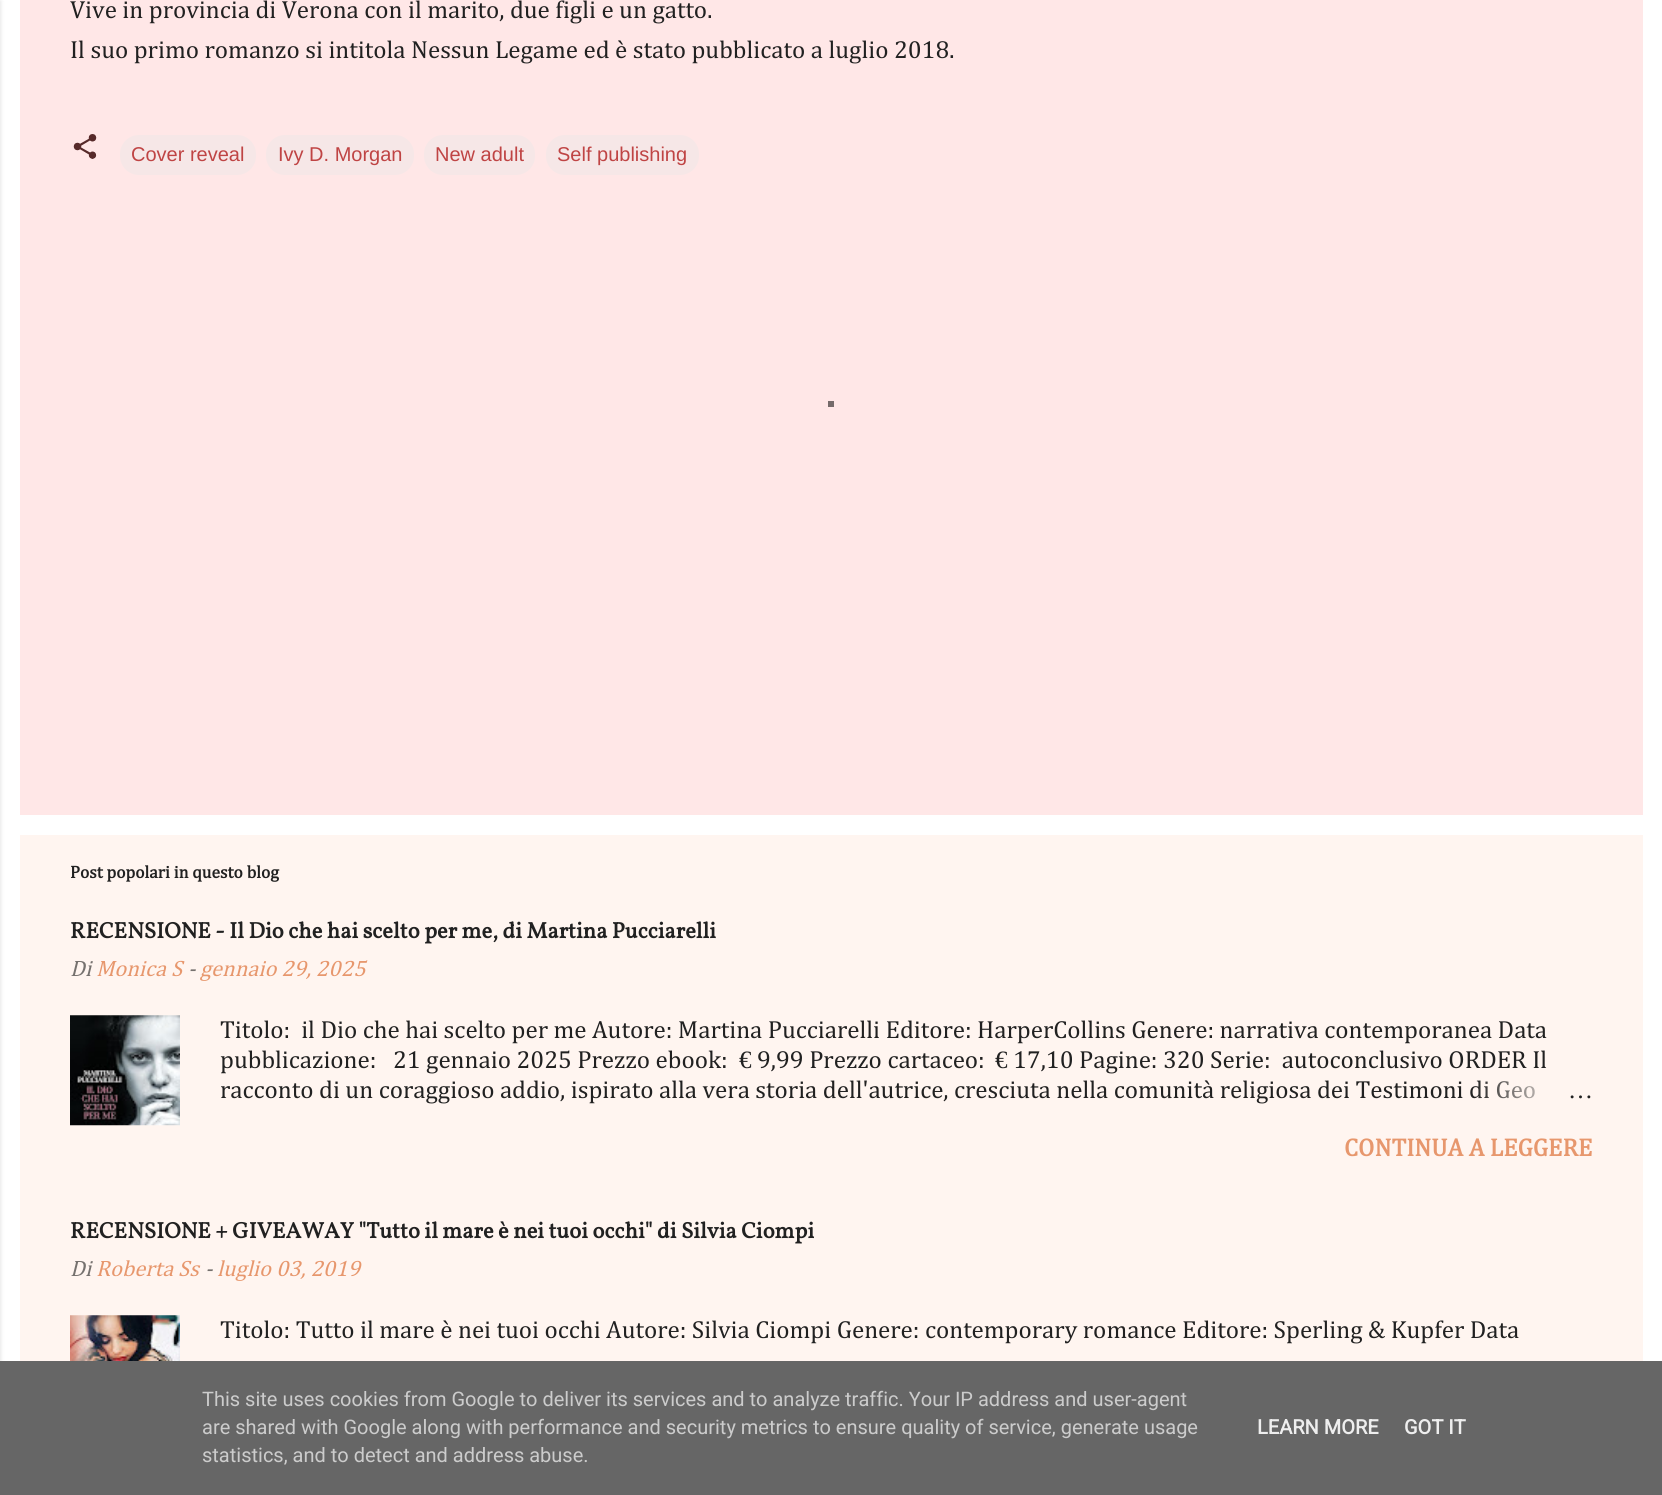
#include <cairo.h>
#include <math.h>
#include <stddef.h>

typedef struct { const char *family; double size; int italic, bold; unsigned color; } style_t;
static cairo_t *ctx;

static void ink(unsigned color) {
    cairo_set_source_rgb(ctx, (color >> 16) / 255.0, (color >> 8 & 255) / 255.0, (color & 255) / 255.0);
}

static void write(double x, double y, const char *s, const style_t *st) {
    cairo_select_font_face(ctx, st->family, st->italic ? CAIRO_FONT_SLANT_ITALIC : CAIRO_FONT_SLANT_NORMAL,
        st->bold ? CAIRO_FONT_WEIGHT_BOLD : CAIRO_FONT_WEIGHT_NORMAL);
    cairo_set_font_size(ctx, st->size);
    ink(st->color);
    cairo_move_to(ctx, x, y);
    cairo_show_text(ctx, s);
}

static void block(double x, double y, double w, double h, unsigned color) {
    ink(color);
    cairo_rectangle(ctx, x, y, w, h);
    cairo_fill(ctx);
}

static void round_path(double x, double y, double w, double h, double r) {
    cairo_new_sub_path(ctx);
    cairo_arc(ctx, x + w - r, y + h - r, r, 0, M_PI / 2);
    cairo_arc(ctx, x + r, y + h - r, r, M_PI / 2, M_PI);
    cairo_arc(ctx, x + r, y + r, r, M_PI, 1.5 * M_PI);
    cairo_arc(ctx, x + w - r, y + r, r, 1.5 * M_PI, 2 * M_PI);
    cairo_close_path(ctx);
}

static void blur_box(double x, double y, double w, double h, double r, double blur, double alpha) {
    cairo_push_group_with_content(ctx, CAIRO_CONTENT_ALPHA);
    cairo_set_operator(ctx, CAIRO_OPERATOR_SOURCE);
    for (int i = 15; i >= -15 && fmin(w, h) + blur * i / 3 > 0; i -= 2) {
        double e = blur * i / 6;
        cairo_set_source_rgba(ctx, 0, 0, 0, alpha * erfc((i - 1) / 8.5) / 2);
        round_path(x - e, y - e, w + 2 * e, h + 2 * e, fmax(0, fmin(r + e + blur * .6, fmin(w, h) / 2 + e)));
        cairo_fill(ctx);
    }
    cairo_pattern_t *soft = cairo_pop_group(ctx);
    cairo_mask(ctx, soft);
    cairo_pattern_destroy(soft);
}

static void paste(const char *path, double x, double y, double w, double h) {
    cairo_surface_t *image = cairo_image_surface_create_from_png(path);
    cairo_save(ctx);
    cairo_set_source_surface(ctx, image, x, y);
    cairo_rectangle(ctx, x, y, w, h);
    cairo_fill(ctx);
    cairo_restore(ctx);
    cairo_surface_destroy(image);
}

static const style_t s1 = {"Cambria", 25, 0, 0, 0x212121};
static const style_t s2 = {"Liberation Sans", 20, 0, 0, 0xbf4444};
static const style_t s3 = {"Cambria", 17.5, 0, 1, 0x212121};
static const style_t s4 = {"Vollkorn", 22.5, 0, 1, 0x212121};
static const style_t s5 = {"Cambria", 22.5, 1, 0, 0x75716e};
static const style_t s6 = {"Cambria", 22.5, 1, 0, 0xe7976d};
static const style_t s7 = {"Liberation Serif", 25, 0, 0, 0x212121};
static const style_t s8 = {"Cambria", 25, 0, 1, 0xe7976d};
static const style_t s9 = {"Roboto", 20, 0, 0, 0xcccccc};
static const style_t s10 = {"Roboto", 20, 0, 1, 0xeeeeee};

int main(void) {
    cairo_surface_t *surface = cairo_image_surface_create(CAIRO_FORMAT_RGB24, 1662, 1495);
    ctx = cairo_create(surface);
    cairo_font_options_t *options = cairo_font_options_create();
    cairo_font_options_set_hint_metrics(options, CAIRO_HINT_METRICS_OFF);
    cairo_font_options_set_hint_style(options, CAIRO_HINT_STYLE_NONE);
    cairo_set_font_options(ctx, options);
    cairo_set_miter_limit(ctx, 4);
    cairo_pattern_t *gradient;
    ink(0xffffff);
    cairo_paint(ctx);
    ink(0x000000);
    blur_box(-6, 1, 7, 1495, 0, 2, 0.1);
    block(20, 0, 1623, 815, 0xffe7e7);
    write(70, 18, "Vive in provincia di Verona con il marito, due figli e un gatto.", &s1);
    write(70, 58, "Il suo primo romanzo si intitola Nessun Legame ed è stato pubblicato a luglio 2018.", &s1);
    paste("pic1.png", 73, 134, 24, 25);
    ink(0xf6e7e7);
    round_path(120, 135, 136, 40, 19);
    cairo_fill(ctx);
    write(131, 161, "Cover reveal", &s2);
    ink(0xf6e7e7);
    round_path(266, 135, 148, 40, 19);
    cairo_fill(ctx);
    write(278, 161, "Ivy D. Morgan", &s2);
    ink(0xf6e7e7);
    round_path(424, 135, 111, 40, 19);
    cairo_fill(ctx);
    write(435, 161, "New adult", &s2);
    ink(0xf6e7e7);
    round_path(546, 135, 153, 40, 19);
    cairo_fill(ctx);
    write(557, 161, "Self publishing", &s2);
    block(20, 835, 1623, 526, 0xfff5f0);
    write(70, 878, "Post popolari in questo blog", &s3);
    write(70, 938, "RECENSIONE - Il Dio che hai scelto per me, di Martina Pucciarelli", &s4);
    write(70, 976, "Di", &s5);
    write(96, 976, "Monica S", &s6);
    write(188, 976, "-", &s5);
    write(200, 976, "gennaio 29, 2025", &s6);
    paste("pic2.png", 70, 1015, 110, 111);
    write(220, 1038, "Titolo:  il Dio che hai scelto per me Autore: Martina Pucciarelli Editore: HarperCollins Genere: narrativa contemporanea Data", &s1);
    write(220, 1068, "pubblicazione:   21 gennaio 2025 Prezzo ebook:", &s1);
    write(739, 1068, "€", &s7);
    write(757, 1068, "9,99 Prezzo cartaceo:", &s1);
    write(995, 1068, "€", &s7);
    write(1013, 1068, "17,10 Pagine: 320 Serie:  autoconclusivo ORDER Il", &s1);
    write(220, 1098, "racconto di un coraggioso addio, ispirato alla vera storia dell'autrice, cresciuta nella comunità religiosa dei Testimoni di Geo", &s1);
    gradient = cairo_pattern_create_linear(1593, 1090, 1473, 1090);
    cairo_pattern_add_color_stop_rgba(gradient, 0, 1, 0.961, 0.941, 1);
    cairo_pattern_add_color_stop_rgba(gradient, 0.2, 1, 0.961, 0.941, 1);
    cairo_pattern_add_color_stop_rgba(gradient, 1, 1, 0.961, 0.941, 0);
    cairo_set_source(ctx, gradient);
    cairo_pattern_destroy(gradient);
    cairo_rectangle(ctx, 1475, 1080, 60, 19);
    cairo_fill(ctx);
    write(1568, 1098, "…", &s7);
    write(1344, 1156, "CONTINUA A LEGGERE", &s8);
    write(70, 1238, "RECENSIONE + GIVEAWAY \"Tutto il mare è nei tuoi occhi\" di Silvia Ciompi", &s4);
    write(70, 1276, "Di", &s5);
    write(96, 1276, "Roberta Ss", &s6);
    write(205, 1276, "-", &s5);
    write(217, 1276, "luglio 03, 2019", &s6);
    paste("pic3.png", 70, 1315, 110, 46);
    write(220, 1338, "Titolo: Tutto il mare è nei tuoi occhi Autore: Silvia Ciompi Genere: contemporary romance Editore: Sperling & Kupfer Data", &s1);
    block(828, 401, 6, 6, 0x756a6a);
    block(0, 1361, 1662, 134, 0x666666);
    write(202, 1406, "This site uses cookies from Google to deliver its services and to analyze traffic. Your IP address and user-agent", &s9);
    write(202, 1434, "are shared with Google along with performance and security metrics to ensure quality of service, generate usage", &s9);
    write(202, 1462, "statistics, and to detect and address abuse.", &s9);
    write(1257, 1434, "LEARN MORE", &s10);
    write(1404, 1434, "GOT IT", &s10);
    cairo_surface_write_to_png(surface, "screenshot.png");
    cairo_font_options_destroy(options);
    cairo_destroy(ctx);
    cairo_surface_destroy(surface);
    return 0;
}
